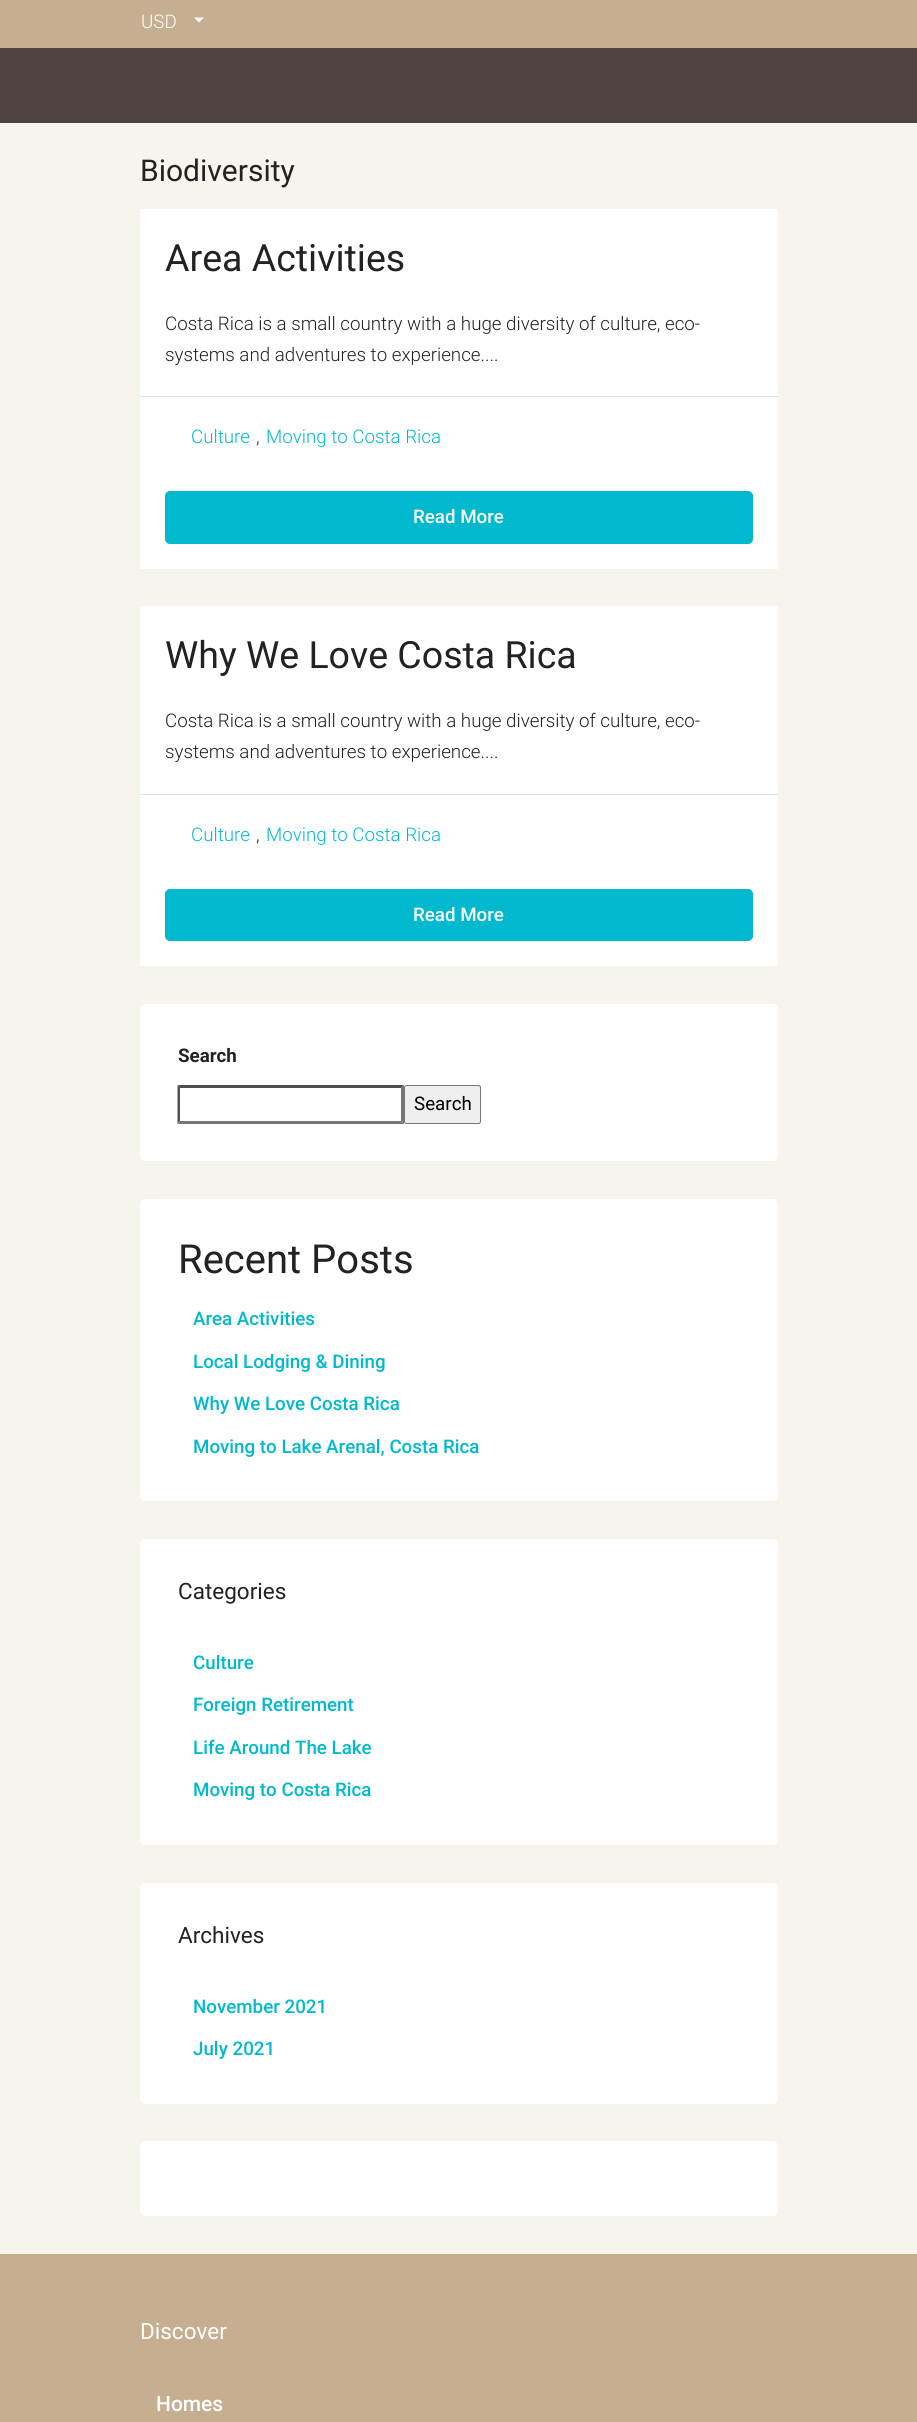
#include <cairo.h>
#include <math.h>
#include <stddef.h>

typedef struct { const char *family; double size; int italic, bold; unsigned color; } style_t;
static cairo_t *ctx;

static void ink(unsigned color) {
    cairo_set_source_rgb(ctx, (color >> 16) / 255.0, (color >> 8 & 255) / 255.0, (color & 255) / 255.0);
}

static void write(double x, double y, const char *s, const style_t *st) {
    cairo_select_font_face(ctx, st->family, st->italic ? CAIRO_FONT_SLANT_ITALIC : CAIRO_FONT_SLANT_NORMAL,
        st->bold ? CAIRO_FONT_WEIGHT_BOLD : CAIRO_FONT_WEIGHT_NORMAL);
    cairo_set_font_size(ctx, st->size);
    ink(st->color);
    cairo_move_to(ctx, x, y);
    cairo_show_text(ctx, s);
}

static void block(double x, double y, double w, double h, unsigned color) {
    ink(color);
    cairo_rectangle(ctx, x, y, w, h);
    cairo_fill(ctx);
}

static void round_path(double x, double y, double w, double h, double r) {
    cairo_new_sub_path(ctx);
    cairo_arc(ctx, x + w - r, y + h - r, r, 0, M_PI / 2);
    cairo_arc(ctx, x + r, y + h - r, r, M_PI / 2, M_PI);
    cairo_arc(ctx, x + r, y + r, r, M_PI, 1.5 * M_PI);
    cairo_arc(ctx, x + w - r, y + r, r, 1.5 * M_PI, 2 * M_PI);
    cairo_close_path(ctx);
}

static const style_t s1 = {"Roboto Light", 18.75, 0, 0, 0xffffff};
static const style_t s2 = {"Roboto", 30, 0, 0, 0x222222};
static const style_t s3 = {"Roboto", 37.5, 0, 0, 0x222222};
static const style_t s4 = {"Roboto Light", 18.75, 0, 0, 0x222222};
static const style_t s5 = {"Roboto Light", 18.75, 0, 0, 0x00b9ce};
static const style_t s6 = {"Roboto Medium", 18.75, 0, 0, 0xffffff};
static const style_t s7 = {"Roboto", 18.75, 0, 1, 0x222222};
static const style_t s8 = {"Roboto", 18.75, 0, 0, 0x000000};
static const style_t s9 = {"Roboto", 40, 0, 0, 0x222222};
static const style_t s10 = {"Roboto Medium", 18.75, 0, 0, 0x00b9ce};
static const style_t s11 = {"Roboto", 22.5, 0, 0, 0x222222};
static const style_t s12 = {"Roboto", 22.5, 0, 0, 0xffffff};
static const style_t s13 = {"Roboto Medium", 21, 0, 0, 0xffffff};

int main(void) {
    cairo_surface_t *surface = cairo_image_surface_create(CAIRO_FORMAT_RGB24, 917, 2422);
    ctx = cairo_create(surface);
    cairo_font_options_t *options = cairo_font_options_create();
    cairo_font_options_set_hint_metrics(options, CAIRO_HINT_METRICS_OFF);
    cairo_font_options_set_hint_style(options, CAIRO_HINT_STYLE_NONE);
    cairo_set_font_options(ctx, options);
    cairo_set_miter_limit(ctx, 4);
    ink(0xf7f4ed);
    cairo_paint(ctx);
    block(0, 0, 917, 48, 0xc6ae90);
    write(141, 28, "USD", &s1);
    cairo_new_path(ctx);
    cairo_move_to(ctx, 194, 17.5);
    cairo_line_to(ctx, 204, 17.5);
    cairo_line_to(ctx, 199, 22.5);
    cairo_close_path(ctx);
    cairo_fill(ctx);
    block(0, 48, 917, 75, 0x4e4540);
    write(140, 181, "Biodiversity", &s2);
    block(140, 209, 638, 360, 0xffffff);
    write(165, 271, "Area Activities", &s3);
    write(165, 330, "Costa Rica is a small country with a huge diversity of culture, eco-", &s4);
    write(165, 361, "systems and adventures to experience....", &s4);
    block(140, 396, 638, 1, 0xdce0e0);
    write(191, 443, "Culture", &s5);
    write(256, 443, ",", &s4);
    write(266, 443, "Moving to Costa Rica", &s5);
    round_path(165.5, 491.5, 587, 52, 4.5);
    cairo_fill_preserve(ctx);
    cairo_set_line_width(ctx, 1);
    cairo_stroke(ctx);
    write(413, 523, "Read More", &s6);
    block(140, 606, 638, 360, 0xffffff);
    write(165, 668, "Why We Love Costa Rica", &s3);
    write(165, 727, "Costa Rica is a small country with a huge diversity of culture, eco-", &s4);
    write(165, 758, "systems and adventures to experience....", &s4);
    block(140, 794, 638, 1, 0xdce0e0);
    write(191, 841, "Culture", &s5);
    write(256, 841, ",", &s4);
    write(266, 841, "Moving to Costa Rica", &s5);
    round_path(165.5, 889.5, 587, 51, 4.5);
    cairo_fill_preserve(ctx);
    cairo_stroke(ctx);
    write(413, 921, "Read More", &s6);
    round_path(140, 1004, 638, 157, 5);
    cairo_fill(ctx);
    write(178, 1062, "Search", &s7);
    ink(0x4f4f4f);
    cairo_new_path(ctx);
    cairo_move_to(ctx, 178, 1085);
    cairo_line_to(ctx, 404, 1085);
    cairo_line_to(ctx, 401, 1088);
    cairo_line_to(ctx, 180, 1088);
    cairo_close_path(ctx);
    cairo_fill(ctx);
    ink(0x767676);
    cairo_new_path(ctx);
    cairo_move_to(ctx, 404, 1085);
    cairo_line_to(ctx, 404, 1124);
    cairo_line_to(ctx, 401, 1121);
    cairo_line_to(ctx, 401, 1087.5);
    cairo_close_path(ctx);
    cairo_fill(ctx);
    cairo_new_path(ctx);
    cairo_move_to(ctx, 404, 1124);
    cairo_line_to(ctx, 178, 1124);
    cairo_line_to(ctx, 180, 1121);
    cairo_line_to(ctx, 401, 1121);
    cairo_close_path(ctx);
    cairo_fill(ctx);
    ink(0x4f4f4f);
    cairo_new_path(ctx);
    cairo_move_to(ctx, 177.5, 1124);
    cairo_line_to(ctx, 177.5, 1085);
    cairo_line_to(ctx, 180, 1087.5);
    cairo_line_to(ctx, 180, 1121);
    cairo_close_path(ctx);
    cairo_fill(ctx);
    ink(0xefefef);
    round_path(404.5, 1085.5, 76, 38, 2);
    cairo_fill_preserve(ctx);
    ink(0x767676);
    cairo_stroke(ctx);
    write(414, 1110, "Search", &s8);
    ink(0xffffff);
    round_path(140, 1199, 638, 302, 5);
    cairo_fill(ctx);
    write(178, 1273, "Recent Posts", &s9);
    write(193, 1325, "Area Activities", &s10);
    write(193, 1368, "Local Lodging & Dining", &s10);
    write(193, 1410, "Why We Love Costa Rica", &s10);
    write(193, 1453, "Moving to Lake Arenal, Costa Rica", &s10);
    ink(0xffffff);
    round_path(140, 1539, 638, 306, 5);
    cairo_fill(ctx);
    write(178, 1599, "Categories", &s11);
    write(193, 1669, "Culture", &s10);
    write(193, 1711, "Foreign Retirement", &s10);
    write(193, 1754, "Life Around The Lake", &s10);
    write(193, 1796, "Moving to Costa Rica", &s10);
    ink(0xffffff);
    round_path(140, 1883, 638, 221, 5);
    cairo_fill(ctx);
    write(178, 1943, "Archives", &s11);
    write(193, 2013, "November 2021", &s10);
    write(193, 2055, "July 2021", &s10);
    ink(0xffffff);
    round_path(140, 2141, 638, 75, 5);
    cairo_fill(ctx);
    block(0, 2254, 917, 168, 0xc6ae90);
    write(140, 2339, "Discover", &s12);
    write(156, 2411, "Homes", &s13);
    cairo_surface_write_to_png(surface, "screenshot.png");
    cairo_font_options_destroy(options);
    cairo_destroy(ctx);
    cairo_surface_destroy(surface);
    return 0;
}
